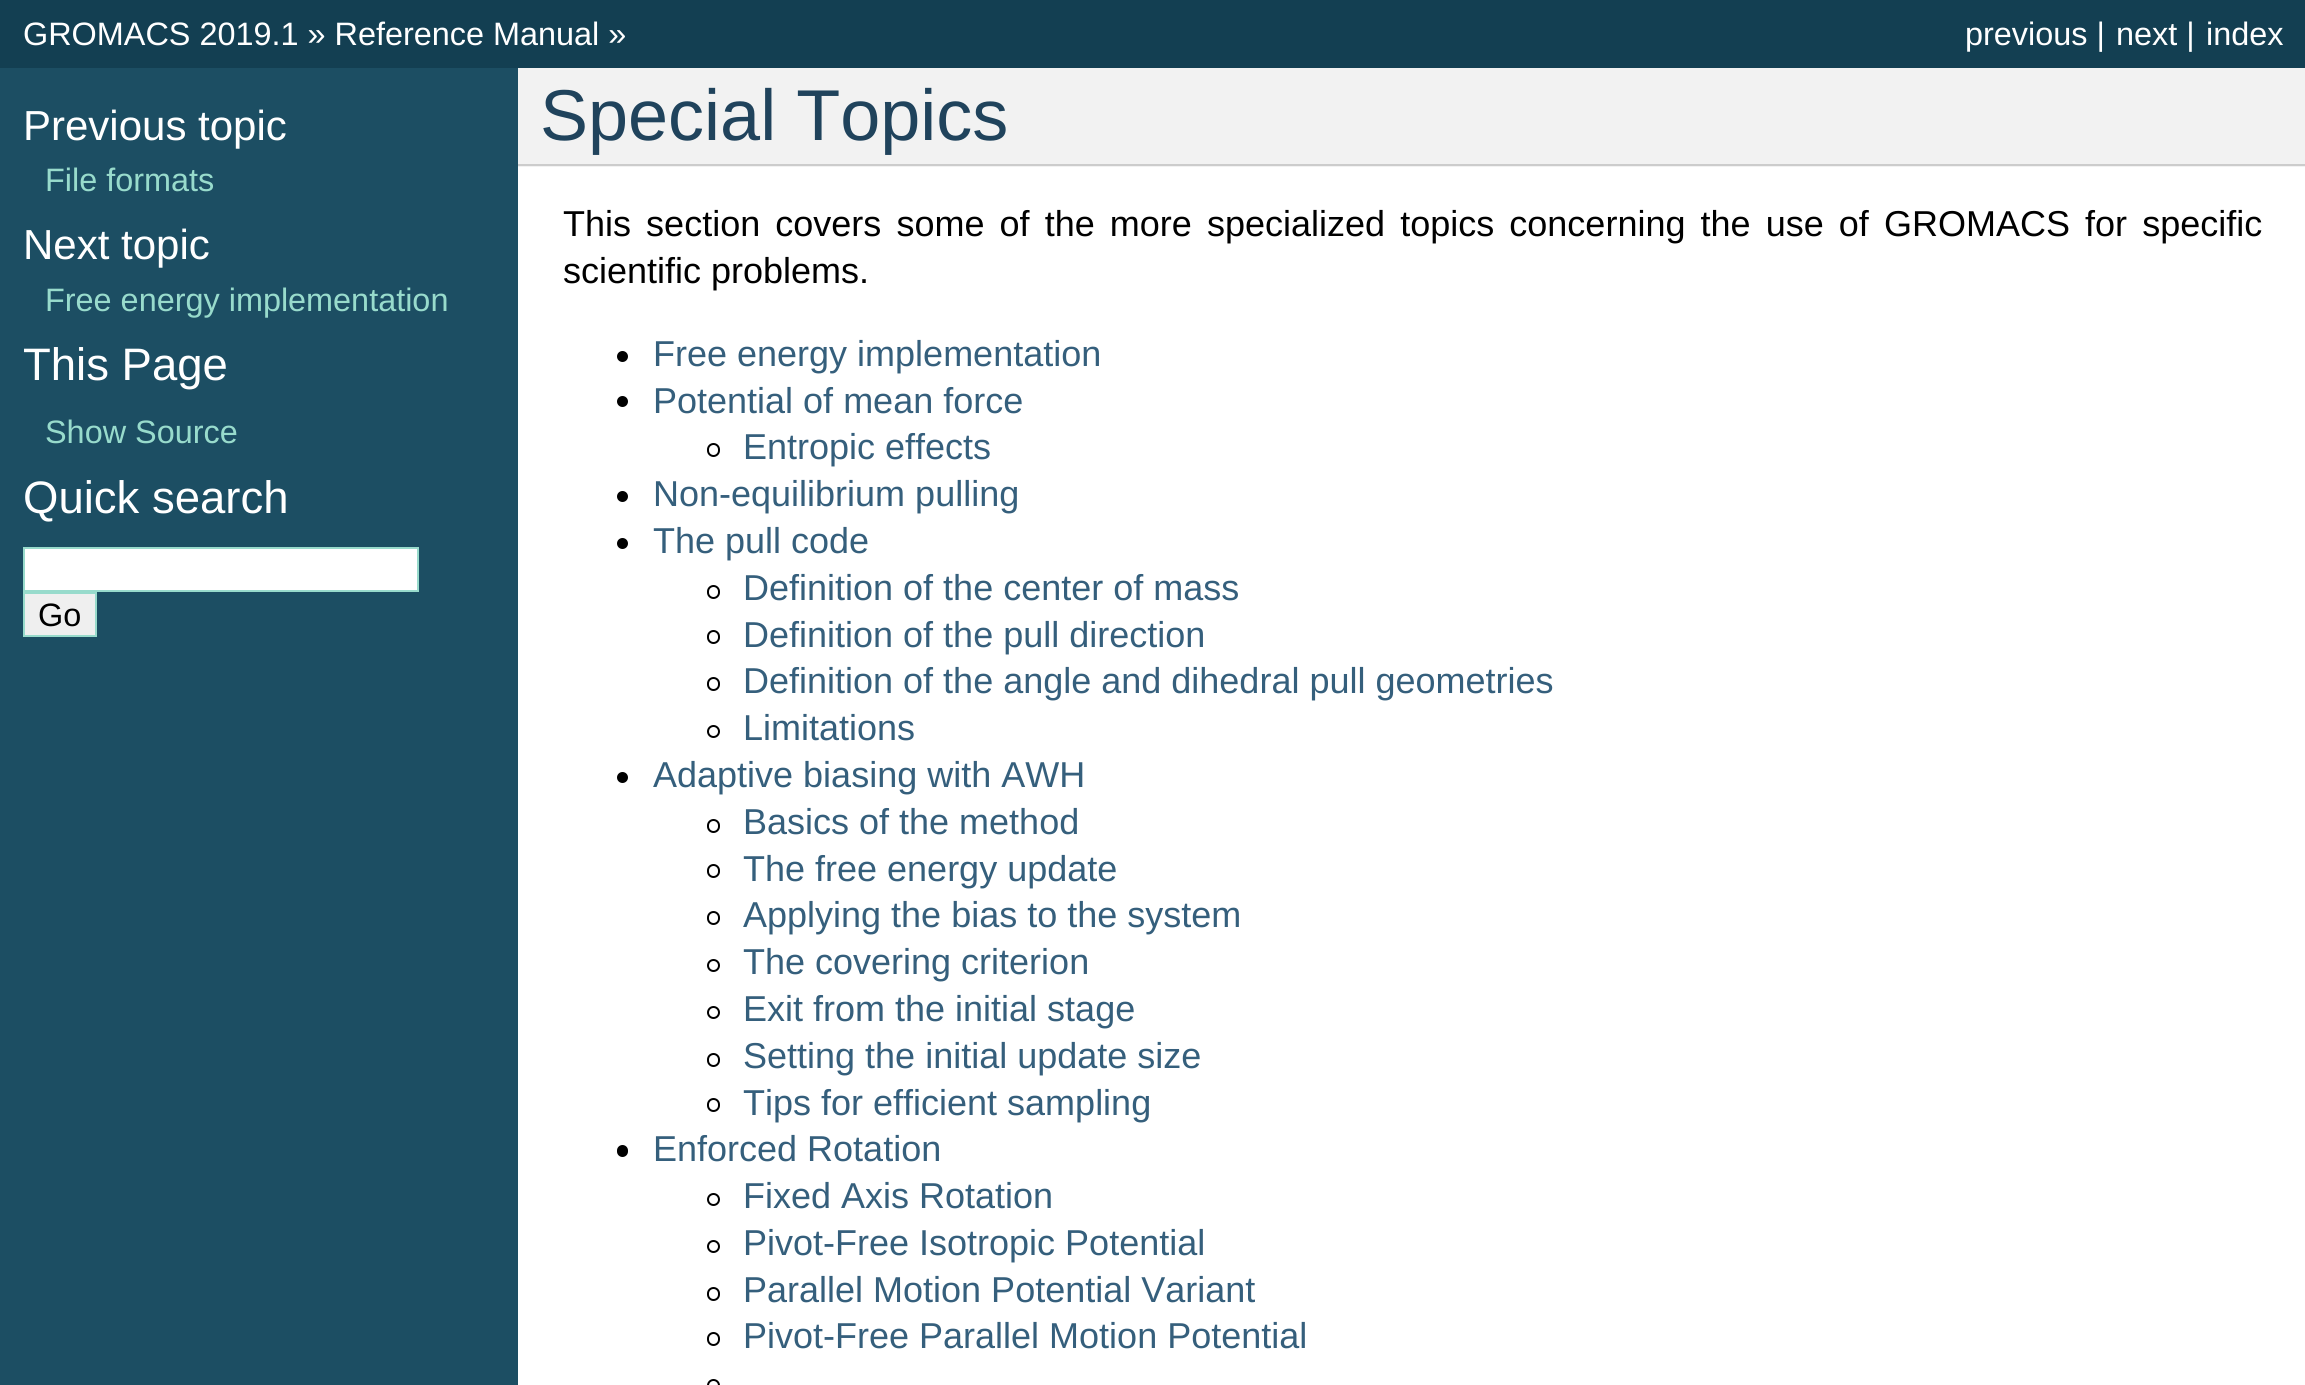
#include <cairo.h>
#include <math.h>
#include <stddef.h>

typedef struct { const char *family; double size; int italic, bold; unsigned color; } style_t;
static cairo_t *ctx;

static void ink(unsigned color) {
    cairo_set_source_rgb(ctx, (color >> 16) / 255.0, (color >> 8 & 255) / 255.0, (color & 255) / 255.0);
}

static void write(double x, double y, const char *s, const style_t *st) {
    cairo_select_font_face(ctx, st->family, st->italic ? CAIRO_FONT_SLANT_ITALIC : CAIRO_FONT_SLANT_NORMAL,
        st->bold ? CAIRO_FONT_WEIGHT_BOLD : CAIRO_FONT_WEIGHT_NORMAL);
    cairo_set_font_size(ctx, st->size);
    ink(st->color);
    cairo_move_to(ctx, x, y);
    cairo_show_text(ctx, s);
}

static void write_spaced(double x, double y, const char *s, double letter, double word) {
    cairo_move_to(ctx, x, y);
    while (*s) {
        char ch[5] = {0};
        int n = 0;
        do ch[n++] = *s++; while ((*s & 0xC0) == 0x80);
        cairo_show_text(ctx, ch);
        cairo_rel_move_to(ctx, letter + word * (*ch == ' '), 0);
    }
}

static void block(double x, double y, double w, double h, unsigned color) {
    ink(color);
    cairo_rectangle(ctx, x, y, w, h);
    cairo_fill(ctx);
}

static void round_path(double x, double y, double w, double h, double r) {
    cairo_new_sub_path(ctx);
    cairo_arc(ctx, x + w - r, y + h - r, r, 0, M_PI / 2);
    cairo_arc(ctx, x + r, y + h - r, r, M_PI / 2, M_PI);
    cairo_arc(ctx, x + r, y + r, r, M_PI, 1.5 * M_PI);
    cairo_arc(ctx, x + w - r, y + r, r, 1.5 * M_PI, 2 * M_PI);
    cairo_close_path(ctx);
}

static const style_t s1 = {"Liberation Sans", 32.4, 0, 0, 0xffffff};
static const style_t s2 = {"Liberation Sans", 42, 0, 0, 0xffffff};
static const style_t s3 = {"Liberation Sans", 32.4, 0, 0, 0x98dbcc};
static const style_t s4 = {"Liberation Sans", 45.5, 0, 0, 0xffffff};
static const style_t s5 = {"Liberation Sans", 32.4, 0, 0, 0x000000};
static const style_t s6 = {"Liberation Sans", 72, 0, 0, 0x20435c};
static const style_t s7 = {"Liberation Sans", 36, 0, 0, 0x000000};
static const style_t s8 = {"Liberation Sans", 36, 0, 0, 0x355f7c};

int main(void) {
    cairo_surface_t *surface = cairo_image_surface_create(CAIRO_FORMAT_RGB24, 2305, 1385);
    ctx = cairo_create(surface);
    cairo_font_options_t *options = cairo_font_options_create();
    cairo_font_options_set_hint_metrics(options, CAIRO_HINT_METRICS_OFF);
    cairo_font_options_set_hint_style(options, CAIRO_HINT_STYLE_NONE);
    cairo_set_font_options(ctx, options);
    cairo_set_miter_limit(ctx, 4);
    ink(0x133f52);
    cairo_paint(ctx);
    write(23, 45, "GROMACS 2019.1 » Reference Manual »", &s1);
    write(1965, 45, "previous |", &s1);
    write(2116, 45, "next |", &s1);
    write(2206, 45, "index", &s1);
    block(0, 68, 518, 1317, 0x1c4e63);
    write(23, 140, "Previous topic", &s2);
    write(45, 191, "File formats", &s3);
    write(23, 259, "Next topic", &s2);
    write(45, 311, "Free energy implementation", &s3);
    write(23, 380, "This Page", &s4);
    write(45, 443, "Show Source", &s3);
    write(23, 513, "Quick search", &s4);
    cairo_rectangle(ctx, 24, 548, 394, 43);
    cairo_fill_preserve(ctx);
    ink(0x98dbcc);
    cairo_stroke(ctx);
    ink(0xefefef);
    cairo_rectangle(ctx, 24, 593, 72, 43);
    cairo_fill_preserve(ctx);
    ink(0x98dbcc);
    cairo_stroke(ctx);
    write(38, 626, "Go", &s5);
    block(518, 167, 1787, 1218, 0xffffff);
    block(518, 68, 1787, 99, 0xf2f2f2);
    block(518, 164, 1787, 2, 0xcccccc);
    write(540, 140, "Special Topics", &s6);
    cairo_set_font_size(ctx, 36);
    ink(0x000000);
    write_spaced(563, 236, "This section covers some of the more specialized topics concerning the use of GROMACS for specific", 0, 5.1);
    write(563, 283, "scientific problems.", &s7);
    cairo_new_path(ctx);
    cairo_arc(ctx, 622.5, 356.5, 5.5, 0, 2 * M_PI);
    cairo_fill(ctx);
    write(653, 366, "Free energy implementation", &s8);
    ink(0x000000);
    cairo_new_path(ctx);
    cairo_arc(ctx, 622.5, 401.5, 5.5, 0, 2 * M_PI);
    cairo_fill(ctx);
    write(653, 413, "Potential of mean force", &s8);
    round_path(708, 444, 11, 12, 5.5);
    ink(0x000000);
    cairo_stroke(ctx);
    write(743, 459, "Entropic effects", &s8);
    ink(0x000000);
    cairo_new_path(ctx);
    cairo_arc(ctx, 622.5, 496.5, 5.5, 0, 2 * M_PI);
    cairo_fill(ctx);
    write(653, 506, "Non-equilibrium pulling", &s8);
    ink(0x000000);
    cairo_new_path(ctx);
    cairo_arc(ctx, 622.5, 543.5, 5.5, 0, 2 * M_PI);
    cairo_fill(ctx);
    write(653, 553, "The pull code", &s8);
    round_path(708, 586, 11, 12, 5.5);
    ink(0x000000);
    cairo_stroke(ctx);
    write(743, 600, "Definition of the center of mass", &s8);
    round_path(708, 631, 11, 12, 5.5);
    ink(0x000000);
    cairo_stroke(ctx);
    write(743, 647, "Definition of the pull direction", &s8);
    round_path(708, 678, 11, 12, 5.5);
    ink(0x000000);
    cairo_stroke(ctx);
    write(743, 693, "Definition of the angle and dihedral pull geometries", &s8);
    cairo_new_path(ctx);
    cairo_arc(ctx, 713.5, 731.5, 5.5, 0, 2 * M_PI);
    ink(0x000000);
    cairo_stroke(ctx);
    write(743, 740, "Limitations", &s8);
    ink(0x000000);
    cairo_new_path(ctx);
    cairo_arc(ctx, 622.5, 777.5, 5.5, 0, 2 * M_PI);
    cairo_fill(ctx);
    write(653, 787, "Adaptive biasing with AWH", &s8);
    round_path(708, 820, 11, 12, 5.5);
    ink(0x000000);
    cairo_stroke(ctx);
    write(743, 834, "Basics of the method", &s8);
    round_path(708, 865, 11, 12, 5.5);
    ink(0x000000);
    cairo_stroke(ctx);
    write(743, 881, "The free energy update", &s8);
    round_path(708, 912, 11, 12, 5.5);
    ink(0x000000);
    cairo_stroke(ctx);
    write(743, 927, "Applying the bias to the system", &s8);
    cairo_new_path(ctx);
    cairo_arc(ctx, 713.5, 965.5, 5.5, 0, 2 * M_PI);
    ink(0x000000);
    cairo_stroke(ctx);
    write(743, 974, "The covering criterion", &s8);
    cairo_new_path(ctx);
    cairo_arc(ctx, 713.5, 1012.5, 5.5, 0, 2 * M_PI);
    ink(0x000000);
    cairo_stroke(ctx);
    write(743, 1021, "Exit from the initial stage", &s8);
    round_path(708, 1054, 11, 12, 5.5);
    ink(0x000000);
    cairo_stroke(ctx);
    write(743, 1068, "Setting the initial update size", &s8);
    round_path(708, 1099, 11, 12, 5.5);
    ink(0x000000);
    cairo_stroke(ctx);
    write(743, 1115, "Tips for efficient sampling", &s8);
    ink(0x000000);
    round_path(617, 1145, 11, 12, 5.5);
    cairo_fill(ctx);
    write(653, 1161, "Enforced Rotation", &s8);
    cairo_new_path(ctx);
    cairo_arc(ctx, 713.5, 1199.5, 5.5, 0, 2 * M_PI);
    ink(0x000000);
    cairo_stroke(ctx);
    write(743, 1208, "Fixed Axis Rotation", &s8);
    cairo_new_path(ctx);
    cairo_arc(ctx, 713.5, 1246.5, 5.5, 0, 2 * M_PI);
    ink(0x000000);
    cairo_stroke(ctx);
    write(743, 1255, "Pivot-Free Isotropic Potential", &s8);
    round_path(708, 1288, 11, 12, 5.5);
    ink(0x000000);
    cairo_stroke(ctx);
    write(743, 1302, "Parallel Motion Potential Variant", &s8);
    round_path(708, 1333, 11, 12, 5.5);
    ink(0x000000);
    cairo_stroke(ctx);
    write(743, 1348, "Pivot-Free Parallel Motion Potential", &s8);
    round_path(708, 1380, 11, 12, 5.5);
    ink(0x000000);
    cairo_stroke(ctx);
    cairo_surface_write_to_png(surface, "screenshot.png");
    cairo_font_options_destroy(options);
    cairo_destroy(ctx);
    cairo_surface_destroy(surface);
    return 0;
}
